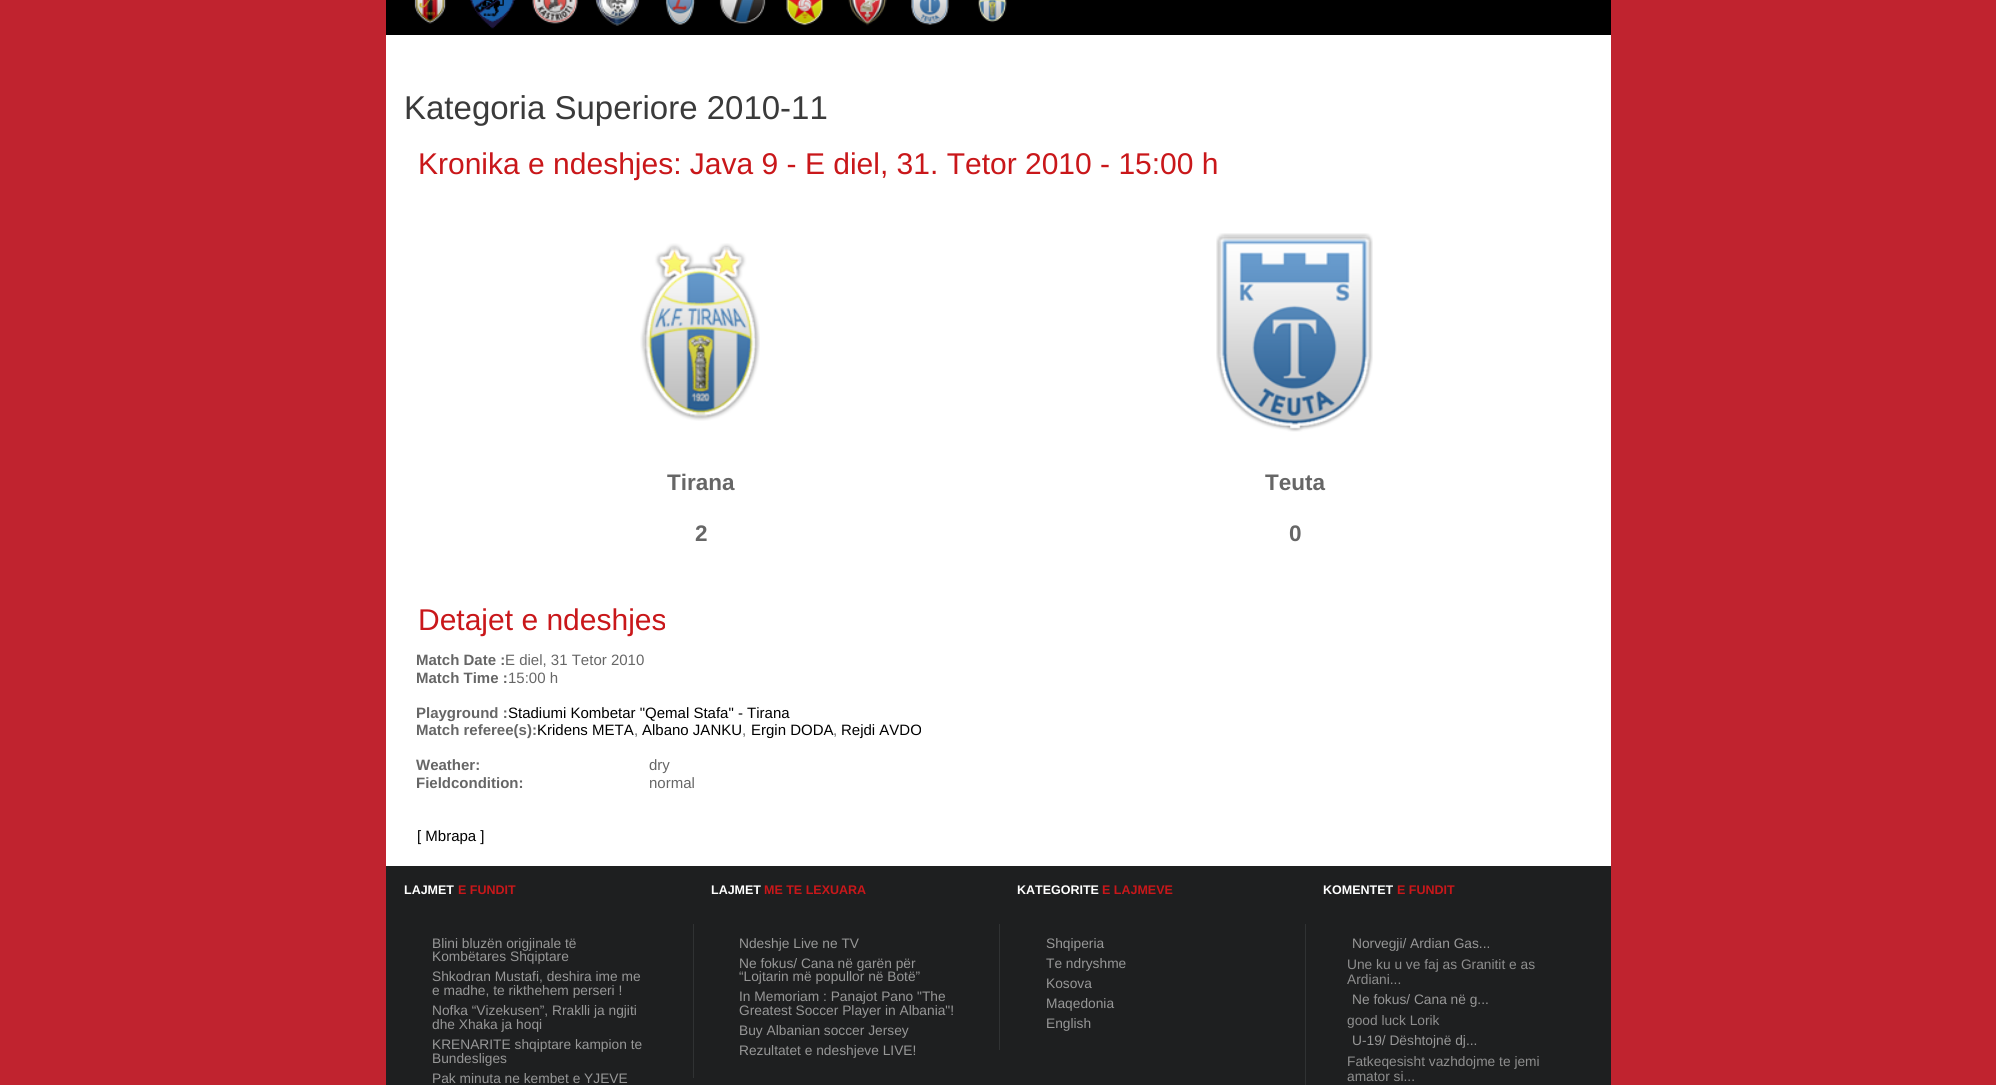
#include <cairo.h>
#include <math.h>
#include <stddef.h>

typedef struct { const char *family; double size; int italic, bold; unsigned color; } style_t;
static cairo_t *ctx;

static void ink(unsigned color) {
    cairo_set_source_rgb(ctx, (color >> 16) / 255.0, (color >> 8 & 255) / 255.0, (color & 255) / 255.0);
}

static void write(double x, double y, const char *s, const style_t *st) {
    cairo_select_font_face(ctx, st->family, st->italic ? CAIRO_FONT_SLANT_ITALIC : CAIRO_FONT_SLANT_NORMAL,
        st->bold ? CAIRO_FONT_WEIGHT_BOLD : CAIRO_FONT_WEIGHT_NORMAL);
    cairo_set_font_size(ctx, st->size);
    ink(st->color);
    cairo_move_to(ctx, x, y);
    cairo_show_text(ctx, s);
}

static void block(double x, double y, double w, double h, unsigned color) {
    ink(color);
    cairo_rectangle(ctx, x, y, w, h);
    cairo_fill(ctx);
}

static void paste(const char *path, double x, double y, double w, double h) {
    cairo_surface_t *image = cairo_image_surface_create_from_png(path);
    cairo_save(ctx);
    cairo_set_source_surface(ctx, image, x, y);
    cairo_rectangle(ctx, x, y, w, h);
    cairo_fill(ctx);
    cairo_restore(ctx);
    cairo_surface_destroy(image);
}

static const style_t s1 = {"Liberation Sans", 33, 0, 0, 0x3a3a3a};
static const style_t s2 = {"Liberation Sans", 30, 0, 0, 0xc9171a};
static const style_t s3 = {"Liberation Sans", 22.5, 0, 1, 0x666666};
static const style_t s4 = {"Liberation Sans", 15, 0, 1, 0x666666};
static const style_t s5 = {"Liberation Sans", 15, 0, 0, 0x666666};
static const style_t s6 = {"Liberation Sans", 15, 0, 0, 0x000000};
static const style_t s7 = {"Liberation Sans", 12.5, 0, 1, 0xffffff};
static const style_t s8 = {"Liberation Sans", 12.5, 0, 1, 0xc9171a};
static const style_t s9 = {"Liberation Sans", 13.75, 0, 0, 0x979797};
static const style_t s10 = {"Liberation Sans", 13.75, 0, 0, 0x8e8e8e};

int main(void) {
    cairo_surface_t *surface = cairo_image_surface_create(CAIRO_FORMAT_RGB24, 1996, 1085);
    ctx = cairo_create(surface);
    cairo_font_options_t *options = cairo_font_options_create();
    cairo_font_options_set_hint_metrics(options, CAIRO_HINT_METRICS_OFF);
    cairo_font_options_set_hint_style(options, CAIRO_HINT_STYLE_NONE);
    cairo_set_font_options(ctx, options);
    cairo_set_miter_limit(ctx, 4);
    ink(0xc0232f);
    cairo_paint(ctx);
    block(386, 0, 1225, 35, 0x000000);
    paste("pic1.png", 414, 0, 33, 24);
    paste("pic2.png", 470, 0, 46, 29);
    paste("pic3.png", 532, 0, 46, 24);
    paste("pic4.png", 595, 0, 45, 26);
    paste("pic5.png", 665, 0, 31, 25);
    paste("pic6.png", 719, 0, 47, 24);
    paste("pic7.png", 786, 0, 38, 26);
    paste("pic8.png", 848, 0, 39, 26);
    paste("pic9.png", 911, 0, 38, 25);
    paste("pic10.png", 978, 0, 29, 23);
    block(386, 35, 1225, 831, 0xffffff);
    write(404, 119, "Kategoria Superiore 2010-11", &s1);
    write(418, 174, "Kronika e ndeshjes: Java 9 - E diel, 31. Tetor 2010 - 15:00 h", &s2);
    paste("pic11.png", 640, 243, 120, 178);
    paste("pic12.png", 1216, 233, 157, 199);
    write(667, 490, "Tirana", &s3);
    write(1265, 490, "Teuta", &s3);
    write(695, 541, "2", &s3);
    write(1289, 541, "0", &s3);
    write(418, 630, "Detajet e ndeshjes", &s2);
    write(416, 665, "Match Date :", &s4);
    write(505, 665, "E diel, 31 Tetor 2010", &s5);
    write(416, 683, "Match Time :", &s4);
    write(508, 683, "15:00 h", &s5);
    write(416, 718, "Playground :", &s4);
    write(508, 718, "Stadiumi Kombetar \"Qemal Stafa\" - Tirana", &s6);
    write(416, 735, "Match referee(s):", &s4);
    write(537, 735, "Kridens META", &s6);
    write(634, 735, ",", &s5);
    write(642, 735, "Albano JANKU", &s6);
    write(742, 735, ",", &s5);
    write(751, 735, "Ergin DODA", &s6);
    write(833, 735, ",", &s5);
    write(841, 735, "Rejdi AVDO", &s6);
    write(416, 770, "Weather:", &s4);
    write(649, 770, "dry", &s5);
    write(416, 788, "Fieldcondition:", &s4);
    write(649, 788, "normal", &s5);
    write(417, 841, "[ Mbrapa ]", &s6);
    block(386, 866, 1225, 219, 0x1e1f20);
    write(404, 894, "LAJMET", &s7);
    write(458, 894, "E FUNDIT", &s8);
    write(432, 948, "Blini bluzën origjinale të", &s9);
    write(432, 961, "Kombëtares Shqiptare", &s9);
    write(432, 981, "Shkodran Mustafi, deshira ime me", &s9);
    write(432, 995, "e madhe, te rikthehem perseri !", &s9);
    write(432, 1015, "Nofka “Vizekusen”, Rraklli ja ngjiti", &s9);
    write(432, 1029, "dhe Xhaka ja hoqi", &s9);
    write(432, 1049, "KRENARITE shqiptare kampion te", &s9);
    write(432, 1063, "Bundesliges", &s9);
    write(432, 1083, "Pak minuta ne kembet e YJEVE", &s9);
    write(711, 894, "LAJMET", &s7);
    write(764, 894, "ME TE LEXUARA", &s8);
    block(693, 924, 1, 154, 0x303233);
    write(739, 948, "Ndeshje Live ne TV", &s9);
    write(739, 968, "Ne fokus/ Cana në garën për", &s9);
    write(739, 981, "“Lojtarin më popullor në Botë”", &s9);
    write(739, 1001, "In Memoriam : Panajot Pano \"The", &s9);
    write(739, 1015, "Greatest Soccer Player in Albania\"!", &s9);
    write(739, 1035, "Buy Albanian soccer Jersey", &s9);
    write(739, 1055, "Rezultatet e ndeshjeve LIVE!", &s9);
    write(1017, 894, "KATEGORITE", &s7);
    write(1102, 894, "E LAJMEVE", &s8);
    block(999, 924, 1, 126, 0x303233);
    write(1046, 948, "Shqiperia", &s9);
    write(1046, 968, "Te ndryshme", &s9);
    write(1046, 988, "Kosova", &s9);
    write(1046, 1008, "Maqedonia", &s9);
    write(1046, 1028, "English", &s9);
    write(1323, 894, "KOMENTET", &s7);
    write(1397, 894, "E FUNDIT", &s8);
    block(1305, 924, 1, 161, 0x303233);
    write(1352, 948, "Norvegji/ Ardian Gas...", &s9);
    write(1347, 969, "Une ku u ve faj as Granitit e as", &s10);
    write(1347, 984, "Ardiani...", &s10);
    write(1352, 1004, "Ne fokus/ Cana në g...", &s9);
    write(1347, 1025, "good luck Lorik", &s10);
    write(1352, 1045, "U-19/ Dështojnë dj...", &s9);
    write(1347, 1066, "Fatkeqesisht vazhdojme te jemi", &s10);
    write(1347, 1081, "amator si...", &s10);
    cairo_surface_write_to_png(surface, "screenshot.png");
    cairo_font_options_destroy(options);
    cairo_destroy(ctx);
    cairo_surface_destroy(surface);
    return 0;
}
